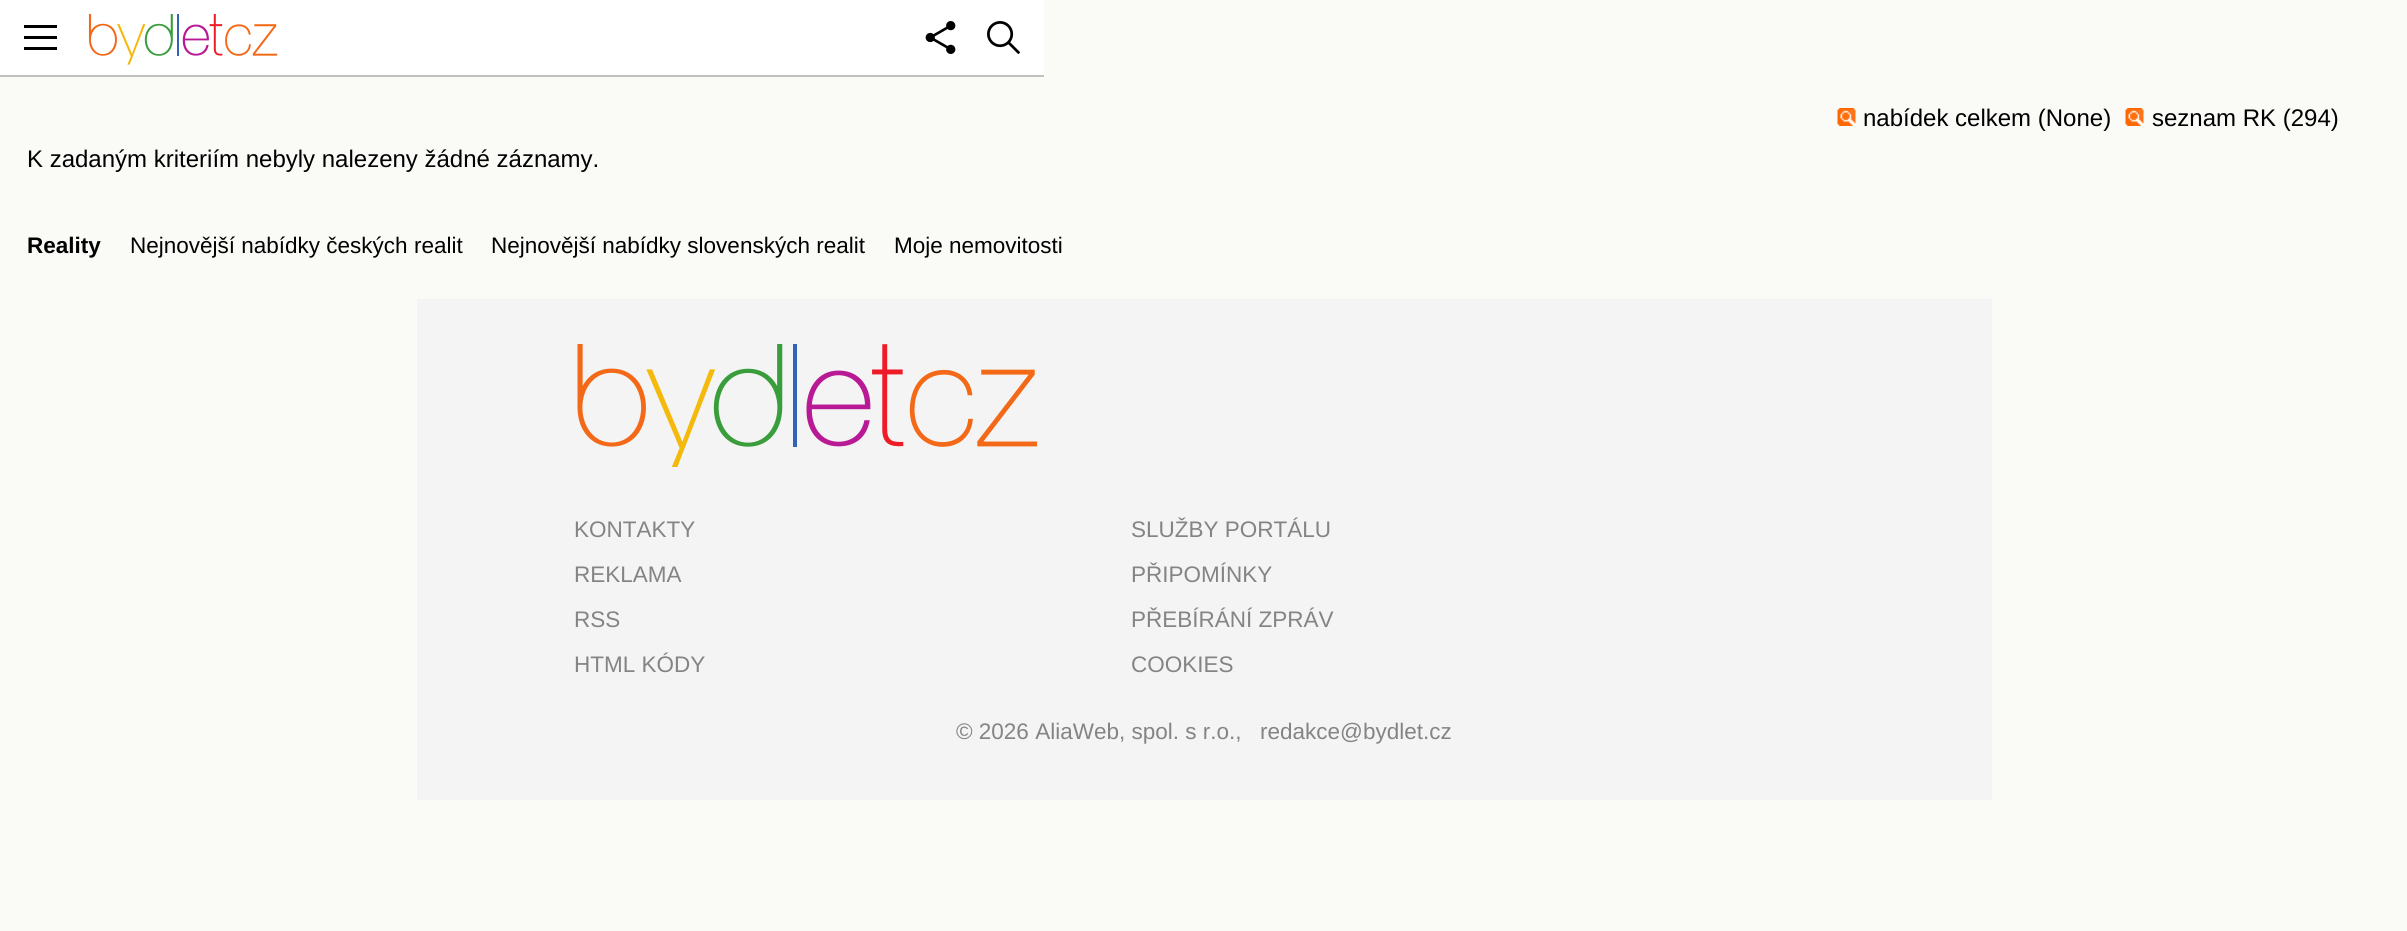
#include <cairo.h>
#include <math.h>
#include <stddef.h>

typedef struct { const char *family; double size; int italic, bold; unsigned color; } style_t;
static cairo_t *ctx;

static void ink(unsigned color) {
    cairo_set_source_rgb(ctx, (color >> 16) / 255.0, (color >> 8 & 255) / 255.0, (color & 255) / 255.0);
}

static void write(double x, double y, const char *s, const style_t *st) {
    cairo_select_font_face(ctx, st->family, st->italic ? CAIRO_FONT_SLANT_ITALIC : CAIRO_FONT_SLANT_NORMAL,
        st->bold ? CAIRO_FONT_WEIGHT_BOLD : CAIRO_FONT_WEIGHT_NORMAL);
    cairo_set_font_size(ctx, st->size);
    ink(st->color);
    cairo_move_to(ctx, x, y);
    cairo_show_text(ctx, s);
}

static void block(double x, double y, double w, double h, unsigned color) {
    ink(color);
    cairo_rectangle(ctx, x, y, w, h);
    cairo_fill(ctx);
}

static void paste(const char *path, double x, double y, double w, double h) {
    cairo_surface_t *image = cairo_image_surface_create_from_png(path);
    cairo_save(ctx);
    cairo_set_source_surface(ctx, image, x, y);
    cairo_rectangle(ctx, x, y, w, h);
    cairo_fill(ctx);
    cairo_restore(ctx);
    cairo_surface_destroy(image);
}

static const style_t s1 = {"Liberation Sans", 24, 0, 0, 0x000000};
static const style_t s2 = {"Liberation Sans", 22.5, 0, 1, 0x000000};
static const style_t s3 = {"Liberation Sans", 22.5, 0, 0, 0x000000};
static const style_t s4 = {"Liberation Sans", 22.5, 0, 0, 0x848484};

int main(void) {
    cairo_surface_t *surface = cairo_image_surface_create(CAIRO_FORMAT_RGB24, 2407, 931);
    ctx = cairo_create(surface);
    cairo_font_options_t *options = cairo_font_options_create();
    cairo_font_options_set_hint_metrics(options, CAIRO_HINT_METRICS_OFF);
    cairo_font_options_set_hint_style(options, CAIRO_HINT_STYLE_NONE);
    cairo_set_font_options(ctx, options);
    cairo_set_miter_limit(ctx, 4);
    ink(0xfafbf7);
    cairo_paint(ctx);
    block(0, 0, 1044, 75, 0xffffff);
    block(0, 75, 1044, 2, 0xc0c0c0);
    block(24, 25, 33, 3, 0x000000);
    paste("pic1.png", 88, 14, 190, 51);
    paste("pic2.png", 925, 21, 31, 33);
    paste("pic3.png", 987, 21, 33, 33);
    block(24, 36, 33, 3, 0x000000);
    block(24, 47, 33, 3, 0x000000);
    paste("pic4.png", 1837, 108, 19, 18);
    write(1863, 126, "nabídek celkem (None)", &s1);
    paste("pic5.png", 2125, 108, 19, 18);
    write(2152, 126, "seznam RK (294)", &s1);
    write(27, 167, "K zadaným kriteriím nebyly nalezeny žádné záznamy.", &s1);
    write(27, 253, "Reality", &s2);
    write(130, 253, "Nejnovější nabídky českých realit", &s3);
    write(491, 253, "Nejnovější nabídky slovenských realit", &s3);
    write(894, 253, "Moje nemovitosti", &s3);
    block(417, 299, 1575, 501, 0xf4f4f4);
    paste("pic6.png", 577, 344, 461, 123);
    write(574, 537, "KONTAKTY", &s4);
    write(1131, 537, "SLUŽBY PORTÁLU", &s4);
    write(574, 582, "REKLAMA", &s4);
    write(1131, 582, "PŘIPOMÍNKY", &s4);
    write(574, 627, "RSS", &s4);
    write(1131, 627, "PŘEBÍRÁNÍ ZPRÁV", &s4);
    write(574, 672, "HTML KÓDY", &s4);
    write(1131, 672, "COOKIES", &s4);
    write(956, 739, "© 2026 AliaWeb, spol. s r.o.,", &s4);
    write(1260, 739, "redakce@bydlet.cz", &s4);
    cairo_surface_write_to_png(surface, "screenshot.png");
    cairo_font_options_destroy(options);
    cairo_destroy(ctx);
    cairo_surface_destroy(surface);
    return 0;
}
